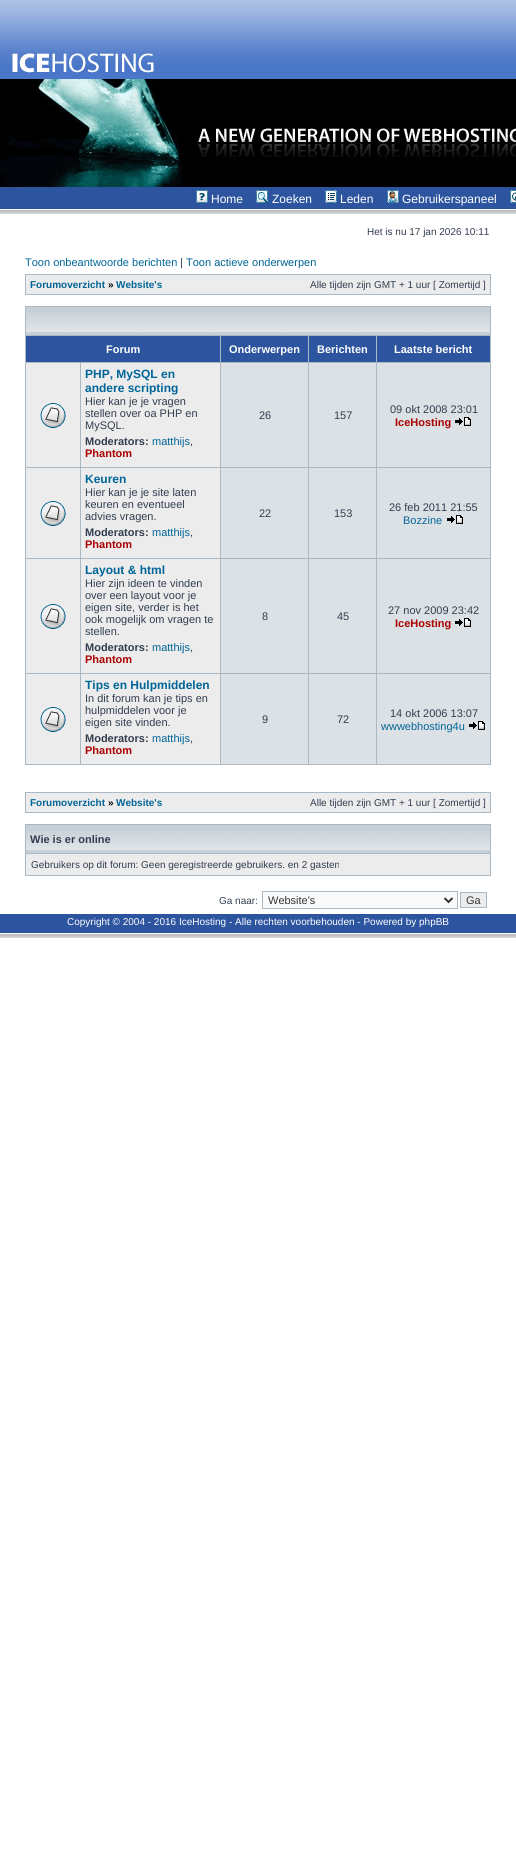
#include <cairo.h>
#include <math.h>
#include <stddef.h>

typedef struct { const char *family; double size; int italic, bold; unsigned color; } style_t;
static cairo_t *ctx;

static void ink(unsigned color) {
    cairo_set_source_rgb(ctx, (color >> 16) / 255.0, (color >> 8 & 255) / 255.0, (color & 255) / 255.0);
}

static void write(double x, double y, const char *s, const style_t *st) {
    cairo_select_font_face(ctx, st->family, st->italic ? CAIRO_FONT_SLANT_ITALIC : CAIRO_FONT_SLANT_NORMAL,
        st->bold ? CAIRO_FONT_WEIGHT_BOLD : CAIRO_FONT_WEIGHT_NORMAL);
    cairo_set_font_size(ctx, st->size);
    ink(st->color);
    cairo_move_to(ctx, x, y);
    cairo_show_text(ctx, s);
}

static void block(double x, double y, double w, double h, unsigned color) {
    ink(color);
    cairo_rectangle(ctx, x, y, w, h);
    cairo_fill(ctx);
}

static void paste(const char *path, double x, double y, double w, double h) {
    cairo_surface_t *image = cairo_image_surface_create_from_png(path);
    cairo_save(ctx);
    cairo_set_source_surface(ctx, image, x, y);
    cairo_rectangle(ctx, x, y, w, h);
    cairo_fill(ctx);
    cairo_restore(ctx);
    cairo_surface_destroy(image);
}

static const style_t s1 = {"Liberation Sans", 12, 0, 0, 0xffffff};
static const style_t s2 = {"Liberation Sans", 10, 0, 0, 0x323d4f};
static const style_t s3 = {"Liberation Sans", 11, 0, 0, 0x006597};
static const style_t s4 = {"Liberation Sans", 11, 0, 0, 0x323d4f};
static const style_t s5 = {"Liberation Sans", 10, 0, 1, 0x006597};
static const style_t s6 = {"Liberation Sans", 10, 0, 1, 0x000000};
static const style_t s7 = {"Liberation Sans", 11, 0, 1, 0xffffff};
static const style_t s8 = {"Liberation Sans", 12, 0, 1, 0x006597};
static const style_t s9 = {"Liberation Sans", 11, 0, 1, 0x323d4f};
static const style_t s10 = {"Liberation Sans", 11, 0, 1, 0xaa0000};
static const style_t s11 = {"Liberation Sans", 11, 0, 0, 0x333333};
static const style_t s12 = {"Liberation Sans", 10, 0, 0, 0xffffff};

int main(void) {
    cairo_surface_t *surface = cairo_image_surface_create(CAIRO_FORMAT_RGB24, 516, 1853);
    ctx = cairo_create(surface);
    cairo_font_options_t *options = cairo_font_options_create();
    cairo_font_options_set_hint_metrics(options, CAIRO_HINT_METRICS_OFF);
    cairo_font_options_set_hint_style(options, CAIRO_HINT_STYLE_NONE);
    cairo_set_font_options(ctx, options);
    cairo_set_miter_limit(ctx, 4);
    ink(0xffffff);
    cairo_paint(ctx);
    paste("pic1.png", 0, 0, 516, 79);
    paste("pic2.png", 12, 53, 142, 20);
    paste("pic3.png", 0, 187, 516, 3);
    paste("pic4.png", 0, 79, 516, 108);
    paste("pic5.png", 0, 190, 14, 24);
    paste("pic6.png", 14, 190, 502, 24);
    paste("pic7.png", 196, 190, 12, 13);
    write(211, 203, "Home", &s1);
    paste("pic8.png", 256, 190, 12, 13);
    write(272, 203, "Zoeken", &s1);
    paste("pic9.png", 325, 190, 12, 13);
    write(340, 203, "Leden", &s1);
    paste("pic10.png", 387, 190, 12, 13);
    write(402, 203, "Gebruikerspaneel", &s1);
    paste("pic11.png", 510, 190, 6, 13);
    write(367, 235, "Het is nu 17 jan 2026 10:11", &s2);
    write(25, 266, "Toon onbeantwoorde berichten", &s3);
    write(180, 266, "|", &s4);
    write(186, 266, "Toon actieve onderwerpen", &s3);
    block(25, 274, 466, 21, 0xa9b8c2);
    block(26, 275, 464, 19, 0xececec);
    write(30, 288, "Forumoverzicht", &s5);
    write(108, 288, "»", &s6);
    write(116, 288, "Website's", &s5);
    write(310, 288, "Alle tijden zijn GMT + 1 uur [ Zomertijd ]", &s2);
    block(25, 306, 466, 459, 0xa9b8c2);
    block(26, 307, 464, 28, 0xc7d0d7);
    paste("pic12.png", 26, 313, 464, 19);
    block(26, 336, 194, 26, 0x2c549f);
    write(106, 353, "Forum", &s7);
    block(221, 336, 87, 26, 0x2c549f);
    write(229, 353, "Onderwerpen", &s7);
    block(309, 336, 67, 26, 0x2c549f);
    write(317, 353, "Berichten", &s7);
    block(377, 336, 113, 26, 0x2c549f);
    write(394, 353, "Laatste bericht", &s7);
    block(26, 363, 54, 104, 0xececec);
    paste("pic13.png", 40, 403, 26, 25);
    block(81, 363, 139, 104, 0xececec);
    write(85, 378, "PHP, MySQL en", &s8);
    write(85, 392, "andere scripting", &s8);
    write(85, 405, "Hier kan je je vragen", &s4);
    write(85, 417, "stellen over oa PHP en", &s4);
    write(85, 429, "MySQL.", &s4);
    write(85, 445, "Moderators:", &s9);
    write(152, 445, "matthijs", &s3);
    write(190, 445, ",", &s4);
    write(85, 457, "Phantom", &s10);
    block(221, 363, 87, 104, 0xdce1e5);
    write(259, 419, "26", &s4);
    block(309, 363, 67, 104, 0xdce1e5);
    write(334, 419, "157", &s4);
    block(377, 363, 113, 104, 0xdce1e5);
    write(390, 413, "09 okt 2008 23:01", &s4);
    write(395, 426, "IceHosting", &s10);
    paste("pic14.png", 455, 417, 16, 9);
    block(26, 468, 54, 90, 0xececec);
    paste("pic13.png", 40, 501, 26, 25);
    block(81, 468, 139, 90, 0xececec);
    write(85, 483, "Keuren", &s8);
    write(85, 496, "Hier kan je je site laten", &s4);
    write(85, 508, "keuren en eventueel", &s4);
    write(85, 520, "advies vragen.", &s4);
    write(85, 536, "Moderators:", &s9);
    write(152, 536, "matthijs", &s3);
    write(190, 536, ",", &s4);
    write(85, 548, "Phantom", &s10);
    block(221, 468, 87, 90, 0xdce1e5);
    write(259, 517, "22", &s4);
    block(309, 468, 67, 90, 0xdce1e5);
    write(334, 517, "153", &s4);
    block(377, 468, 113, 90, 0xdce1e5);
    write(389, 511, "26 feb 2011 21:55", &s4);
    write(403, 524, "Bozzine", &s3);
    paste("pic14.png", 447, 515, 16, 9);
    block(26, 559, 54, 114, 0xececec);
    paste("pic13.png", 40, 604, 26, 25);
    block(81, 559, 139, 114, 0xececec);
    write(85, 574, "Layout & html", &s8);
    write(85, 587, "Hier zijn ideen te vinden", &s4);
    write(85, 599, "over een layout voor je", &s4);
    write(85, 611, "eigen site, verder is het", &s4);
    write(85, 623, "ook mogelijk om vragen te", &s4);
    write(85, 635, "stellen.", &s4);
    write(85, 651, "Moderators:", &s9);
    write(152, 651, "matthijs", &s3);
    write(190, 651, ",", &s4);
    write(85, 663, "Phantom", &s10);
    block(221, 559, 87, 114, 0xdce1e5);
    write(262, 620, "8", &s4);
    block(309, 559, 67, 114, 0xdce1e5);
    write(337, 620, "45", &s4);
    block(377, 559, 113, 114, 0xdce1e5);
    write(388, 614, "27 nov 2009 23:42", &s4);
    write(395, 627, "IceHosting", &s10);
    paste("pic14.png", 455, 618, 16, 9);
    block(26, 674, 54, 90, 0xececec);
    paste("pic13.png", 40, 707, 26, 25);
    block(81, 674, 139, 90, 0xececec);
    write(85, 689, "Tips en Hulpmiddelen", &s8);
    write(85, 702, "In dit forum kan je tips en", &s4);
    write(85, 714, "hulpmiddelen voor je", &s4);
    write(85, 726, "eigen site vinden.", &s4);
    write(85, 742, "Moderators:", &s9);
    write(152, 742, "matthijs", &s3);
    write(190, 742, ",", &s4);
    write(85, 754, "Phantom", &s10);
    block(221, 674, 87, 90, 0xdce1e5);
    write(262, 723, "9", &s4);
    block(309, 674, 67, 90, 0xdce1e5);
    write(337, 723, "72", &s4);
    block(377, 674, 113, 90, 0xdce1e5);
    write(390, 717, "14 okt 2006 13:07", &s4);
    write(381, 730, "wwwebhosting4u", &s3);
    paste("pic14.png", 469, 721, 16, 9);
    block(25, 792, 466, 21, 0xa9b8c2);
    block(26, 793, 464, 19, 0xececec);
    write(30, 806, "Forumoverzicht", &s5);
    write(108, 806, "»", &s6);
    write(116, 806, "Website's", &s5);
    write(310, 806, "Alle tijden zijn GMT + 1 uur [ Zomertijd ]", &s2);
    block(25, 824, 466, 52, 0xa9b8c2);
    block(26, 825, 464, 28, 0xc7d0d7);
    paste("pic12.png", 26, 831, 464, 19);
    write(30, 843, "Wie is er online", &s9);
    block(26, 854, 464, 21, 0xececec);
    write(31, 868, "Gebruikers op dit forum: Geen geregistreerde gebruikers. en 2 gasten", &s2);
    write(219, 904, "Ga naar:", &s2);
    ink(0xfafafa);
    cairo_rectangle(ctx, 262.5, 891.5, 195, 17);
    cairo_fill_preserve(ctx);
    ink(0xa9b8c2);
    cairo_set_line_width(ctx, 1);
    cairo_stroke(ctx);
    cairo_new_path(ctx);
    cairo_move_to(ctx, 444.5, 898);
    cairo_line_to(ctx, 448.5, 902);
    cairo_line_to(ctx, 452.5, 898);
    ink(0x333333);
    cairo_set_line_width(ctx, 2);
    cairo_stroke(ctx);
    write(268, 904, "Website's", &s11);
    ink(0xececec);
    cairo_rectangle(ctx, 460.5, 892.5, 26, 15);
    cairo_fill_preserve(ctx);
    ink(0xa9b8c2);
    cairo_set_line_width(ctx, 1);
    cairo_stroke(ctx);
    write(466, 904, "Ga", &s11);
    paste("pic15.png", 0, 914, 516, 24);
    write(67, 925, "Copyright © 2004 - 2016 IceHosting - Alle rechten voorbehouden - Powered by phpBB", &s12);
    cairo_surface_write_to_png(surface, "screenshot.png");
    cairo_font_options_destroy(options);
    cairo_destroy(ctx);
    cairo_surface_destroy(surface);
    return 0;
}
